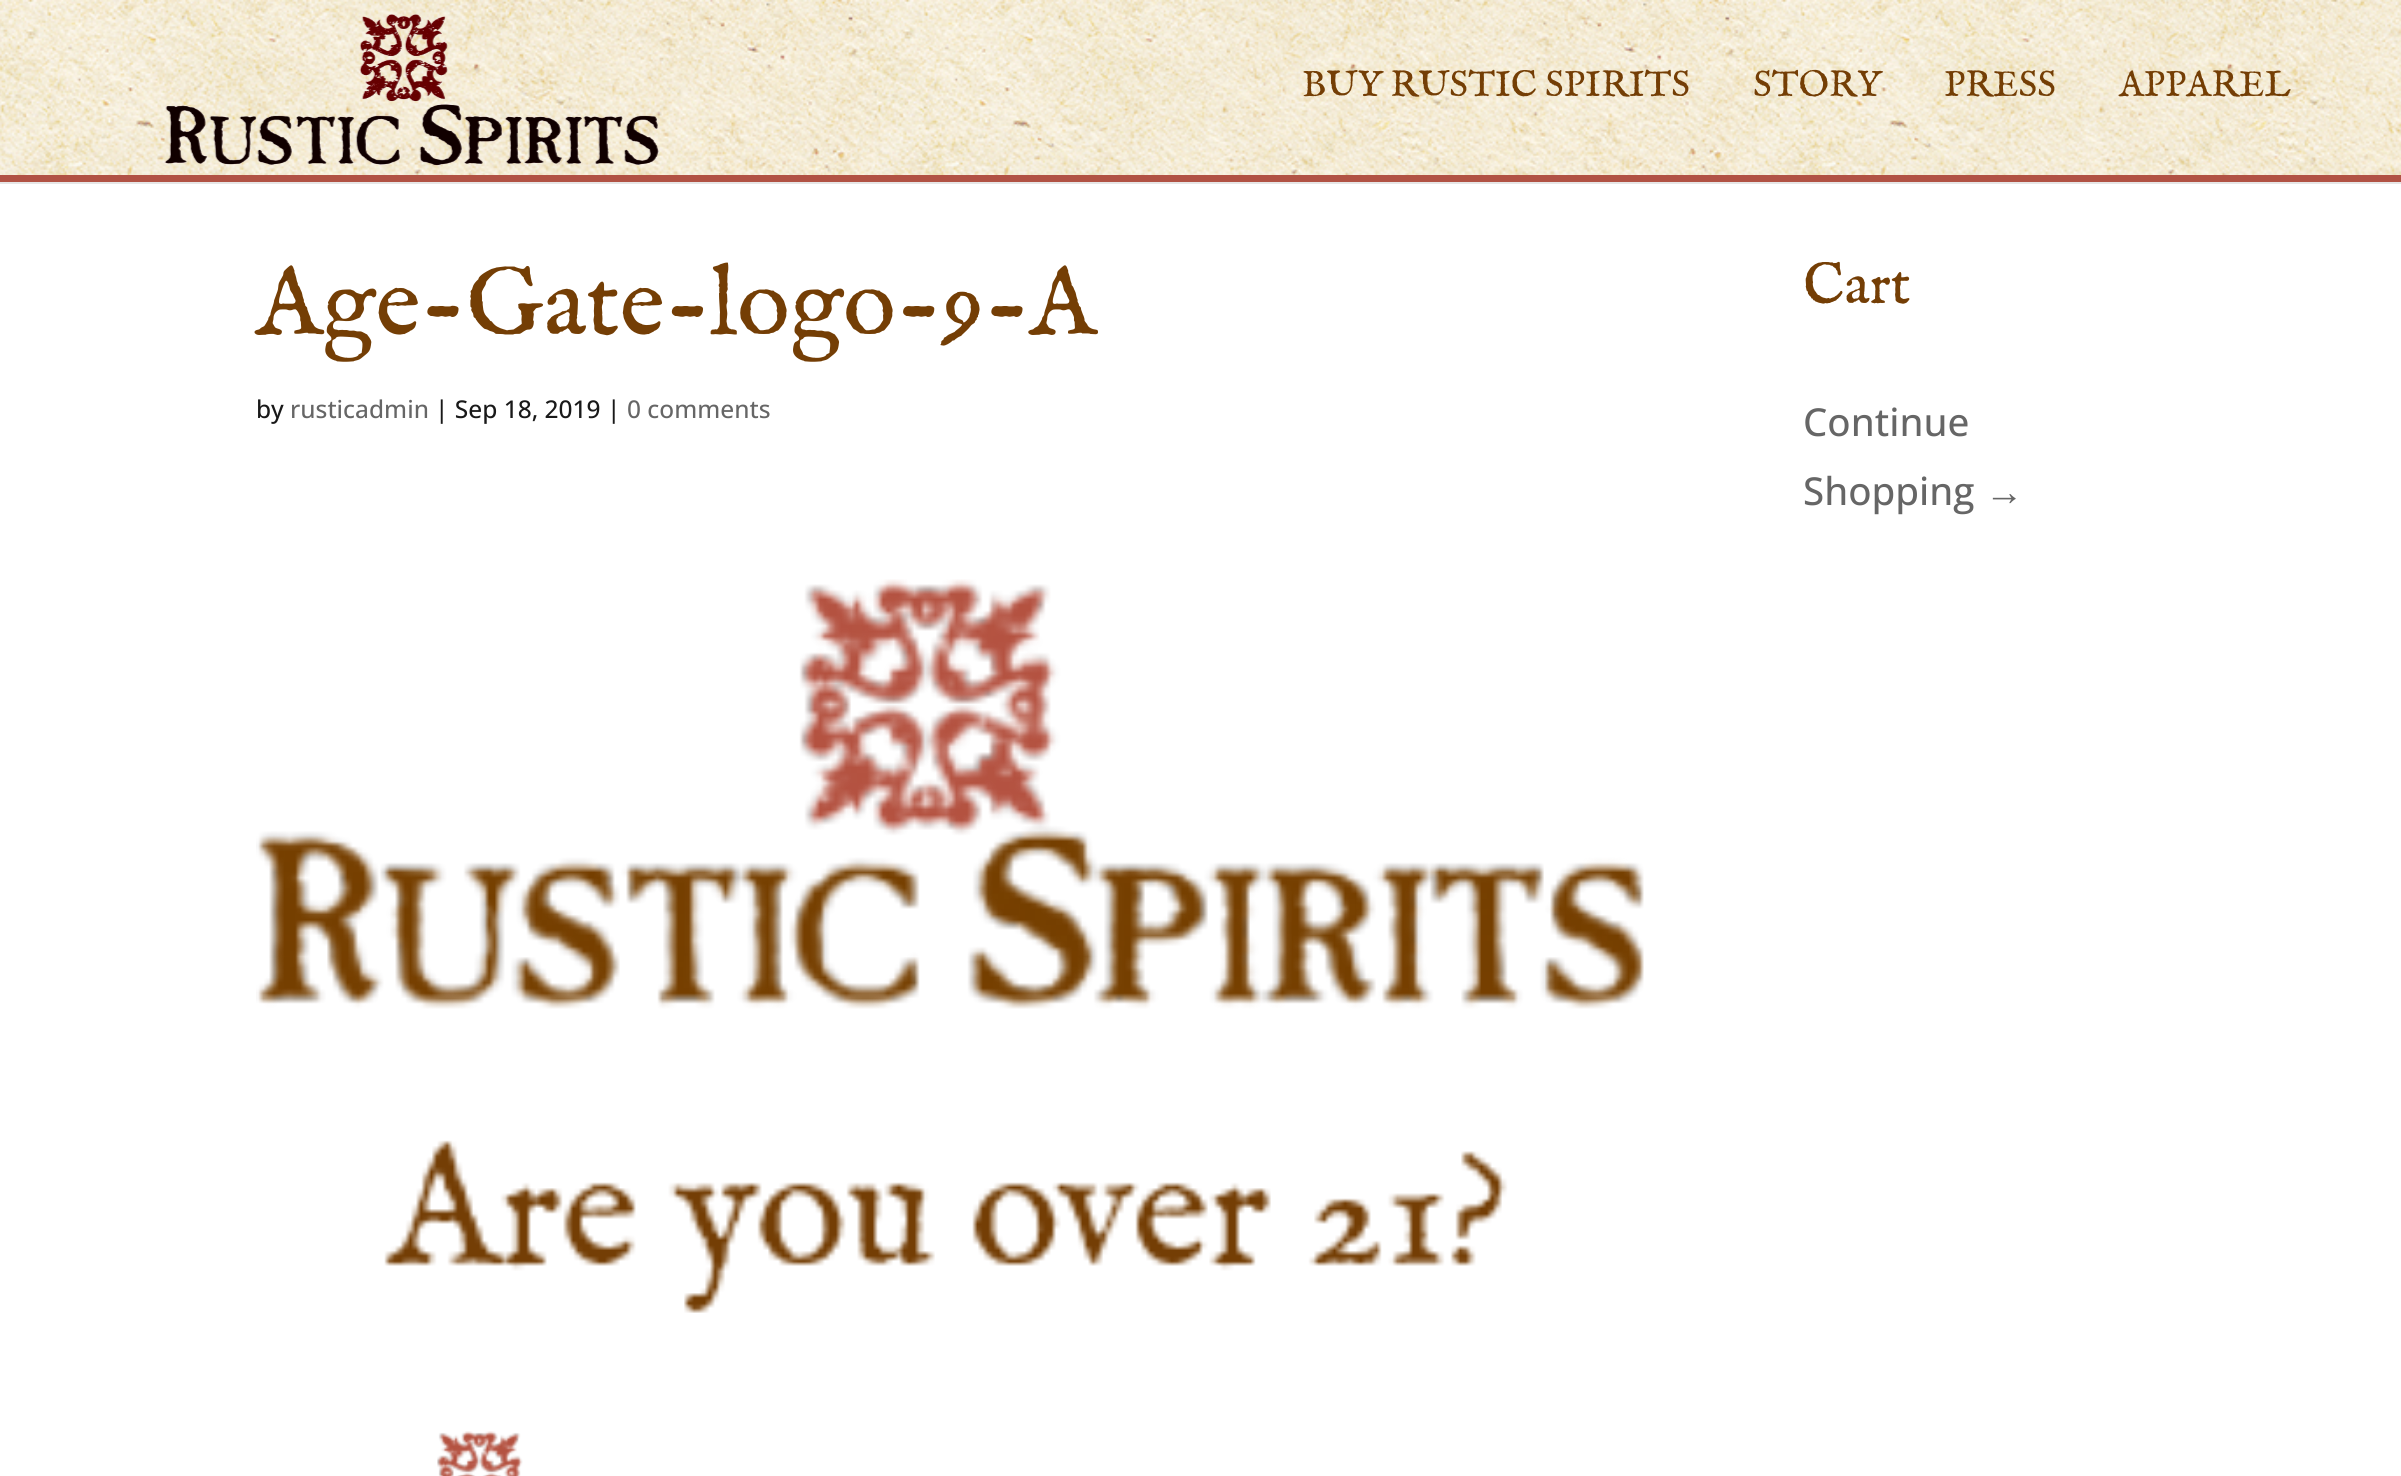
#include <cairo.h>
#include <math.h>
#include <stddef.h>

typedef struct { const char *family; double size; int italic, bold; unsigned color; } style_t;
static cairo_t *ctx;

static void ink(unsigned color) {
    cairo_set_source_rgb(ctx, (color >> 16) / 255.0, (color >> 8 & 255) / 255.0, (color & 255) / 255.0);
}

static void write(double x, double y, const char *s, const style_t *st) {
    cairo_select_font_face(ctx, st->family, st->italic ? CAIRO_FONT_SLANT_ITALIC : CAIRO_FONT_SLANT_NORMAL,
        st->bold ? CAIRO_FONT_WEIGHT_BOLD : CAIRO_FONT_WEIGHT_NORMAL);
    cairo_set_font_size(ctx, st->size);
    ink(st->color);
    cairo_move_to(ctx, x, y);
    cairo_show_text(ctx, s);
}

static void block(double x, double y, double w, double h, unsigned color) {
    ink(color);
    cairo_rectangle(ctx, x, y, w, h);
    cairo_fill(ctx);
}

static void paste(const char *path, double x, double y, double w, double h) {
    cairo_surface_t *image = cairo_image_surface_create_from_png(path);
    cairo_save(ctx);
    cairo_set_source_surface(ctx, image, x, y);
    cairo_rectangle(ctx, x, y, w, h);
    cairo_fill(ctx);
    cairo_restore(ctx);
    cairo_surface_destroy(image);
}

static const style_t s1 = {"IM FELL English", 36.75, 0, 0, 0x743e05};
static const style_t s2 = {"IM FELL English", 98, 0, 0, 0x743e05};
static const style_t s3 = {"Open Sans Medium", 24.5, 0, 0, 0x191919};
static const style_t s4 = {"Open Sans Medium", 24.5, 0, 0, 0x666666};
static const style_t s5 = {"IM FELL English", 58, 0, 0, 0x743e05};
static const style_t s6 = {"Open Sans Medium", 38.5, 0, 0, 0x666666};
static const style_t s7 = {"Liberation Sans", 38.5, 0, 0, 0x666666};

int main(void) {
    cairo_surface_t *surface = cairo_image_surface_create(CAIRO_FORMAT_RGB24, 2401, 1476);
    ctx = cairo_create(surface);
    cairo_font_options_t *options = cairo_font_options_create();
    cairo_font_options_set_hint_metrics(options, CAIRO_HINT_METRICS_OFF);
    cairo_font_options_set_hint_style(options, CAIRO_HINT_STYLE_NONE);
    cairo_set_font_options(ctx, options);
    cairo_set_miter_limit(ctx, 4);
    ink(0xffffff);
    cairo_paint(ctx);
    block(0, 182, 2401, 2, 0xe6e6e6);
    paste("pic1.png", 0, 0, 2401, 175);
    block(0, 175, 2401, 7, 0xb15244);
    paste("pic2.png", 164, 14, 495, 152);
    write(1302, 96, "BUY RUSTIC SPIRITS", &s1);
    write(1753, 96, "STORY", &s1);
    write(1944, 96, "PRESS", &s1);
    write(2119, 96, "APPAREL", &s1);
    write(256, 334, "Age-Gate-logo-9-A", &s2);
    write(256, 418, "by", &s3);
    write(290, 418, "rusticadmin", &s4);
    write(435, 418, "| Sep 18, 2019 |", &s3);
    write(627, 418, "0 comments", &s4);
    paste("pic3.png", 256, 579, 1388, 734);
    paste("pic4.png", 437, 1431, 86, 45);
    write(1803, 303, "Cart", &s5);
    write(1803, 436, "Continue", &s6);
    write(1803, 505, "Shopping", &s6);
    write(1985, 505, "→", &s7);
    cairo_surface_write_to_png(surface, "screenshot.png");
    cairo_font_options_destroy(options);
    cairo_destroy(ctx);
    cairo_surface_destroy(surface);
    return 0;
}
